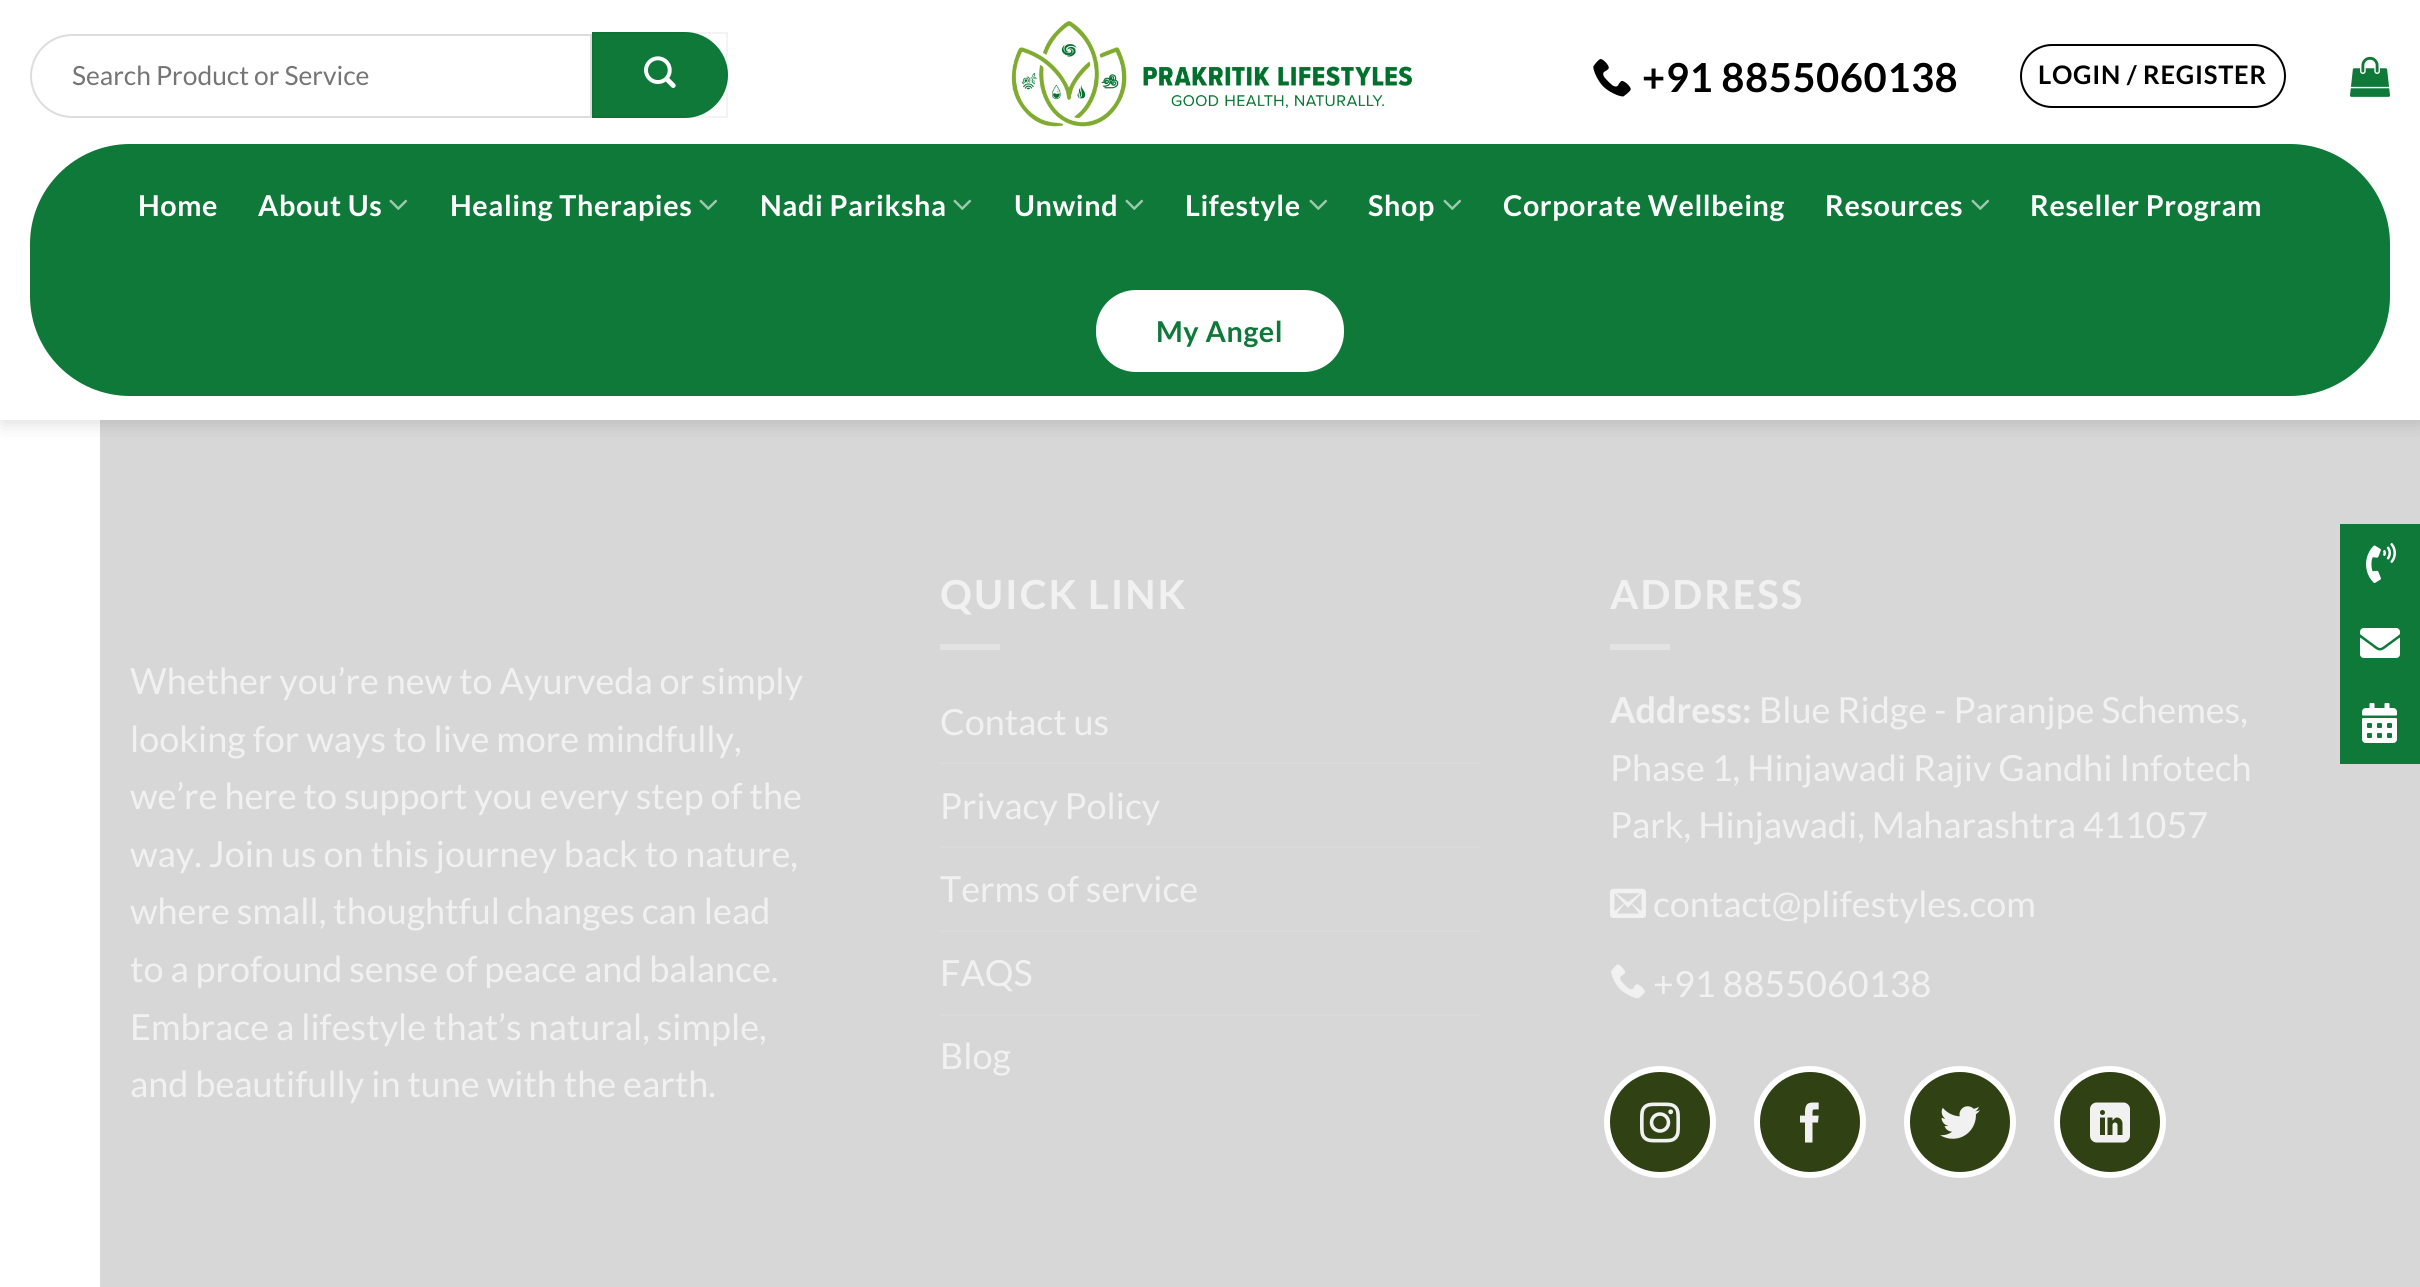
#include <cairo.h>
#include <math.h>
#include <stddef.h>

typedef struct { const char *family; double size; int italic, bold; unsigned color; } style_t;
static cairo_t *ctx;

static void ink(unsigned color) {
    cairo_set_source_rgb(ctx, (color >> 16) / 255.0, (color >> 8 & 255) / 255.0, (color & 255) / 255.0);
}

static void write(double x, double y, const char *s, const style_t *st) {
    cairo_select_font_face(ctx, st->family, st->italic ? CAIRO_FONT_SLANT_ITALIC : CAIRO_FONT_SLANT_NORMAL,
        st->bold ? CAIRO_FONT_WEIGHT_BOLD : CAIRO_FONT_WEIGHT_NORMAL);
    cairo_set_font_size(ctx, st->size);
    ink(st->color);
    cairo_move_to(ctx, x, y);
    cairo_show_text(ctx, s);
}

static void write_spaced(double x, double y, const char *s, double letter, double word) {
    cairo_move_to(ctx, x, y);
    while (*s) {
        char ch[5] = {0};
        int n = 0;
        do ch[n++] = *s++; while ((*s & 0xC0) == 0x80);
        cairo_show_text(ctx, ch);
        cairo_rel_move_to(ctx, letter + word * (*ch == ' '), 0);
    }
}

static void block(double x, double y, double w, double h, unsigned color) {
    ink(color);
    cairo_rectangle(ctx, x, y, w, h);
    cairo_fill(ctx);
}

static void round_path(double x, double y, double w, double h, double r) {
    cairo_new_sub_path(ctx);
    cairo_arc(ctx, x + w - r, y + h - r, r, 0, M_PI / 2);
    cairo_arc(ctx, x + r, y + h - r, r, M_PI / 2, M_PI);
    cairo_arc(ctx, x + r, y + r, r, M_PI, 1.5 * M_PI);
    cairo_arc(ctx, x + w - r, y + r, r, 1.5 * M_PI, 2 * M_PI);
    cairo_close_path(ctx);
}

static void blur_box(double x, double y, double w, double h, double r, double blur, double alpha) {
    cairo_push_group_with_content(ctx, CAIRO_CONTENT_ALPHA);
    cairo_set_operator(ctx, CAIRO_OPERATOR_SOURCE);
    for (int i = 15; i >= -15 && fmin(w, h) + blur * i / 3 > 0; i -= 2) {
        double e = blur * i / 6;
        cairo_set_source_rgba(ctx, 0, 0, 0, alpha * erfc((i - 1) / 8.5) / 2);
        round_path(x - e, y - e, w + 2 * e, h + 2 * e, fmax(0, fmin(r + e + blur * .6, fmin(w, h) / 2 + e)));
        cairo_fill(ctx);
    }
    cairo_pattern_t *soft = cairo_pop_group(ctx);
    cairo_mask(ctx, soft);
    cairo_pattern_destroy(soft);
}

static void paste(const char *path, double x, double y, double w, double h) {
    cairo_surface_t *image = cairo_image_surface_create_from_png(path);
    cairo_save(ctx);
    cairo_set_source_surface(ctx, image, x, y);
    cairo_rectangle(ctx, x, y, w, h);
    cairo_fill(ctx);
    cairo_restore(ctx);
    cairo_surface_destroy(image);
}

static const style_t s1 = {"Lato", 26.4, 0, 0, 0x757575};
static const style_t s2 = {"Lato", 36, 0, 0, 0xf1f1f1};
static const style_t s3 = {"Lato", 36, 0, 1, 0xf1f1f1};

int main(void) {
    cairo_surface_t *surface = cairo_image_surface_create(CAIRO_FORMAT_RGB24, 2420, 1287);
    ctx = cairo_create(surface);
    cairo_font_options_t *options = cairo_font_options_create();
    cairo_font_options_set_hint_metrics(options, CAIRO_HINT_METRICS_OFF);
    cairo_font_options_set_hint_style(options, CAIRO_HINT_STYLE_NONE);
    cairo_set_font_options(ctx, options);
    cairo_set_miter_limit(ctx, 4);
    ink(0xffffff);
    cairo_paint(ctx);
    block(100, 420, 2320, 867, 0xd7d7d7);
    ink(0x000000);
    blur_box(2, 2, 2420, 420, 0, 10, 0.15);
    block(0, 0, 2420, 420, 0xffffff);
    cairo_new_path(ctx);
    cairo_move_to(ctx, 72, 35);
    cairo_line_to(ctx, 591, 35);
    cairo_line_to(ctx, 591, 117);
    cairo_line_to(ctx, 72, 117);
    cairo_curve_to(ctx, 49.5, 117, 31, 98.5, 31, 76);
    cairo_curve_to(ctx, 31, 53.5, 49.5, 35, 72, 35);
    cairo_close_path(ctx);
    ink(0xdddddd);
    cairo_stroke(ctx);
    write(72, 85, "Search Product or Service", &s1);
    ink(0x0e7938);
    cairo_new_path(ctx);
    cairo_move_to(ctx, 592, 32);
    cairo_line_to(ctx, 685, 32);
    cairo_curve_to(ctx, 708.5, 32, 728, 51.5, 728, 75);
    cairo_curve_to(ctx, 728, 98.5, 708.5, 118, 685, 118);
    cairo_line_to(ctx, 592, 118);
    cairo_close_path(ctx);
    cairo_fill(ctx);
    cairo_rectangle(ctx, 593, 33, 134, 84);
    cairo_set_source_rgba(ctx, 0, 0, 0, 0.05);
    cairo_stroke(ctx);
    paste("pic1.png", 644, 56, 32, 32);
    paste("pic2.png", 1011, 21, 401, 106);
    paste("pic3.png", 1593, 59, 38, 38);
    cairo_select_font_face(ctx, "Lato", CAIRO_FONT_SLANT_NORMAL, CAIRO_FONT_WEIGHT_BOLD);
    cairo_set_font_size(ctx, 40);
    ink(0x000000);
    write_spaced(1642, 92, "+91 8855060138", 0.5, 0);
    round_path(2021, 45, 264, 62, 31);
    cairo_stroke(ctx);
    cairo_set_font_size(ctx, 25.5);
    write_spaced(2038, 84, "LOGIN / REGISTER", 0.75, 0);
    paste("pic4.png", 2350, 56, 40, 41);
    ink(0x0e7938);
    round_path(30, 144, 2360, 252, 100);
    cairo_fill(ctx);
    cairo_set_font_size(ctx, 28.75);
    ink(0xffffff);
    write_spaced(138, 216, "Home", 0.6, 0);
    write_spaced(258, 216, "About Us", 0.6, 0);
    paste("pic5.png", 389, 199, 19, 11);
    write_spaced(450, 216, "Healing Therapies", 0.6, 0);
    paste("pic5.png", 699, 199, 19, 11);
    write_spaced(760, 216, "Nadi Pariksha", 0.6, 0);
    paste("pic5.png", 953, 199, 19, 11);
    write_spaced(1014, 216, "Unwind", 0.6, 0);
    paste("pic5.png", 1125, 199, 19, 11);
    write_spaced(1185, 216, "Lifestyle", 0.6, 0);
    paste("pic5.png", 1309, 199, 19, 11);
    write_spaced(1368, 216, "Shop", 0.6, 0);
    paste("pic5.png", 1443, 199, 19, 11);
    write_spaced(1503, 216, "Corporate Wellbeing", 0.6, 0);
    write_spaced(1825, 216, "Resources", 0.6, 0);
    paste("pic5.png", 1971, 199, 19, 11);
    write_spaced(2030, 216, "Reseller Program", 0.6, 0);
    round_path(1096, 290, 248, 82, 40);
    cairo_fill(ctx);
    ink(0x0e7938);
    write_spaced(1156, 342, "My Angel", 0.6, 0);
    write(130, 694, "Whether you’re new to Ayurveda or simply", &s2);
    write(130, 752, "looking for ways to live more mindfully,", &s2);
    write(130, 809, "we’re here to support you every step of the", &s2);
    write(130, 867, "way. Join us on this journey back to nature,", &s2);
    write(130, 924, "where small, thoughtful changes can lead", &s2);
    write(130, 982, "to a profound sense of peace and balance.", &s2);
    write(130, 1040, "Embrace a lifestyle that’s natural, simple,", &s2);
    write(130, 1097, "and beautifully in tune with the earth.", &s2);
    cairo_select_font_face(ctx, "Lato", CAIRO_FONT_SLANT_NORMAL, CAIRO_FONT_WEIGHT_BOLD);
    cairo_set_font_size(ctx, 40);
    write_spaced(940, 609, "QUICK LINK", 2, 0);
    block(940, 644, 60, 6, 0xe3e3e3);
    write(940, 735, "Contact us", &s2);
    block(940, 762, 540, 2, 0xdadada);
    write(940, 819, "Privacy Policy", &s2);
    block(940, 846, 540, 2, 0xdadada);
    write(940, 902, "Terms of service", &s2);
    block(940, 930, 540, 2, 0xdadada);
    write(940, 986, "FAQS", &s2);
    block(940, 1014, 540, 2, 0xdadada);
    write(940, 1069, "Blog", &s2);
    cairo_select_font_face(ctx, "Lato", CAIRO_FONT_SLANT_NORMAL, CAIRO_FONT_WEIGHT_BOLD);
    cairo_set_font_size(ctx, 40);
    write_spaced(1610, 609, "ADDRESS", 2, 0);
    block(1610, 644, 60, 6, 0xe3e3e3);
    write(1610, 723, "Address:", &s3);
    write(1759, 723, "Blue Ridge - Paranjpe Schemes,", &s2);
    write(1610, 781, "Phase 1, Hinjawadi Rajiv Gandhi Infotech", &s2);
    write(1610, 838, "Park, Hinjawadi, Maharashtra 411057", &s2);
    paste("pic6.png", 1610, 888, 36, 30);
    write(1653, 917, "contact@plifestyles.com", &s2);
    paste("pic7.png", 1611, 964, 34, 35);
    write(1653, 997, "+91 8855060138", &s2);
    cairo_new_path(ctx);
    cairo_arc(ctx, 1660, 1122, 53, 0, 2 * M_PI);
    ink(0xffffff);
    cairo_set_line_width(ctx, 6);
    cairo_stroke(ctx);
    ink(0x304113);
    cairo_arc(ctx, 1660, 1122, 50, 0, 2 * M_PI);
    cairo_fill(ctx);
    paste("pic8.png", 1640, 1102, 40, 41);
    cairo_arc(ctx, 1810, 1122, 53, 0, 2 * M_PI);
    ink(0xffffff);
    cairo_stroke(ctx);
    ink(0x304113);
    cairo_arc(ctx, 1810, 1122, 50, 0, 2 * M_PI);
    cairo_fill(ctx);
    paste("pic9.png", 1800, 1102, 19, 41);
    cairo_arc(ctx, 1960, 1122, 53, 0, 2 * M_PI);
    ink(0xffffff);
    cairo_stroke(ctx);
    ink(0x304113);
    cairo_arc(ctx, 1960, 1122, 50, 0, 2 * M_PI);
    cairo_fill(ctx);
    paste("pic10.png", 1940, 1106, 40, 33);
    cairo_arc(ctx, 2110, 1122, 53, 0, 2 * M_PI);
    ink(0xffffff);
    cairo_stroke(ctx);
    ink(0x304113);
    cairo_arc(ctx, 2110, 1122, 50, 0, 2 * M_PI);
    cairo_fill(ctx);
    paste("pic11.png", 2090, 1102, 40, 41);
    block(2340, 524, 80, 240, 0x0e7938);
    paste("pic12.png", 2366, 543, 30, 40);
    paste("pic13.png", 2360, 628, 40, 30);
    paste("pic14.png", 2362, 703, 35, 40);
    cairo_surface_write_to_png(surface, "screenshot.png");
    cairo_font_options_destroy(options);
    cairo_destroy(ctx);
    cairo_surface_destroy(surface);
    return 0;
}
